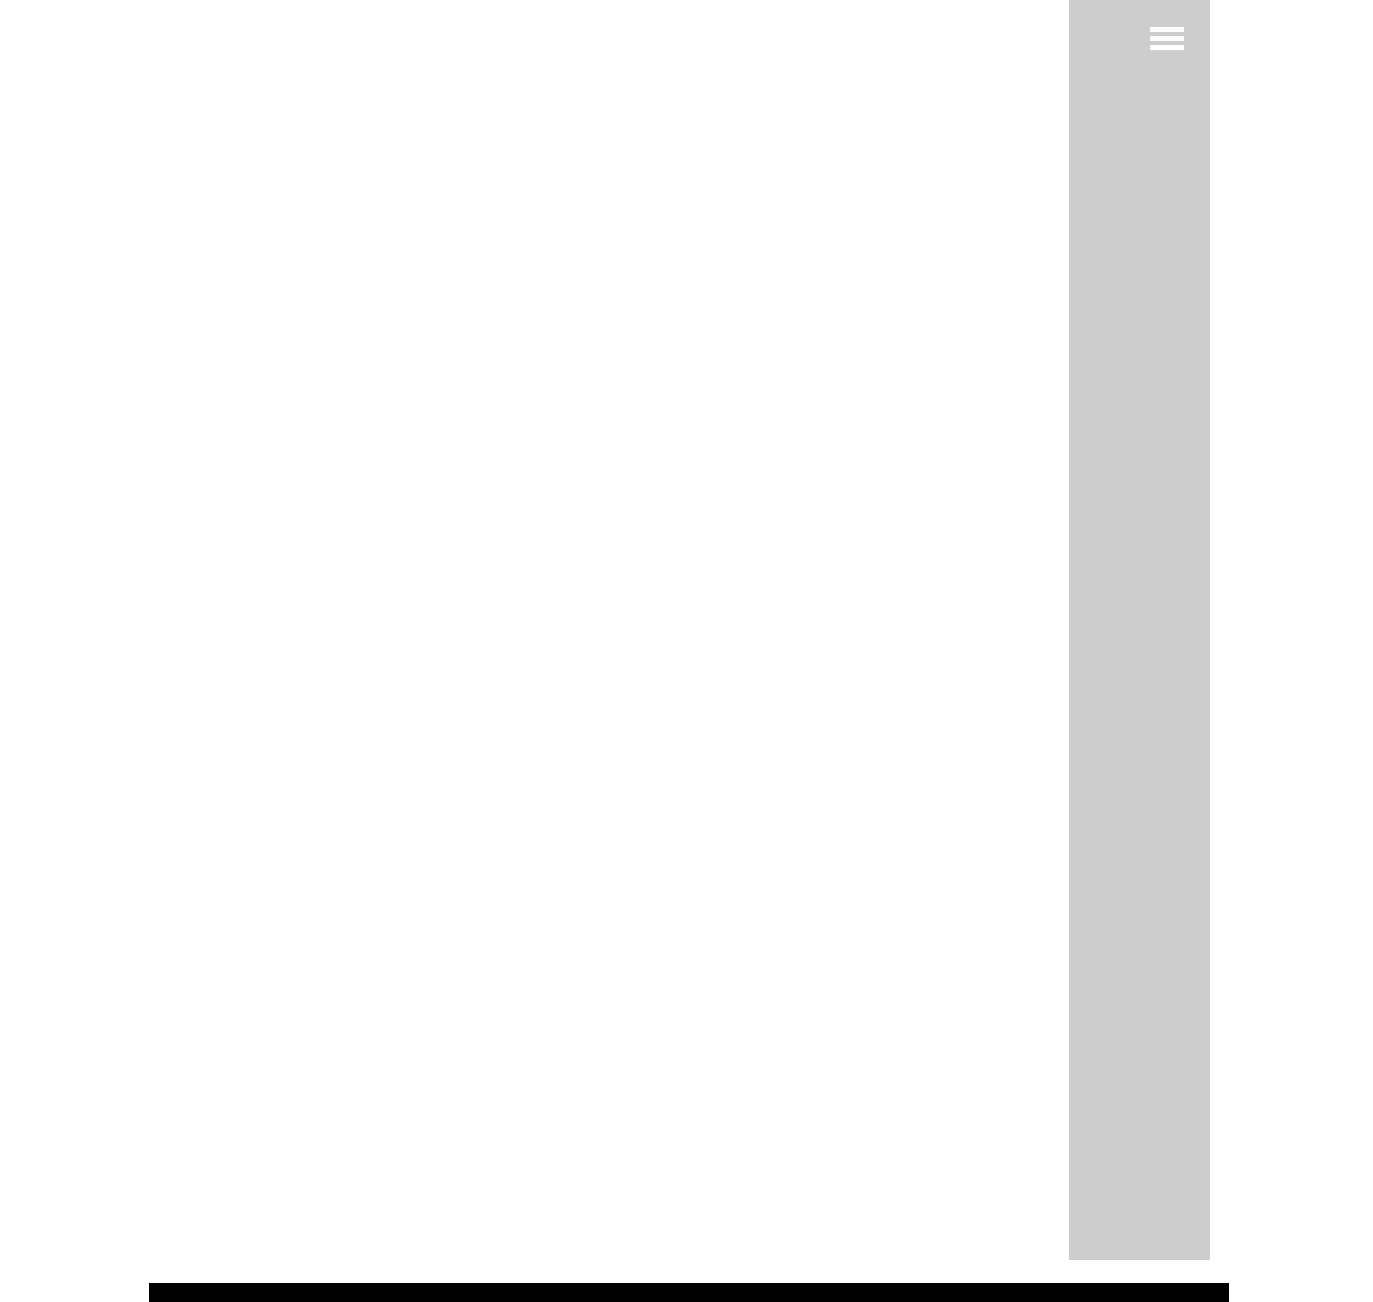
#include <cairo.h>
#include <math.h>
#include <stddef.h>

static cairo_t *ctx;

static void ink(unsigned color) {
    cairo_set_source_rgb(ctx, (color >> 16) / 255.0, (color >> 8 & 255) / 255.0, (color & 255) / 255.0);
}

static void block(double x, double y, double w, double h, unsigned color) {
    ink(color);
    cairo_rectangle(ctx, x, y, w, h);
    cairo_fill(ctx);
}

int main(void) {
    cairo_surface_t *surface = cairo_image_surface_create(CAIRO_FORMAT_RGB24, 1373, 1302);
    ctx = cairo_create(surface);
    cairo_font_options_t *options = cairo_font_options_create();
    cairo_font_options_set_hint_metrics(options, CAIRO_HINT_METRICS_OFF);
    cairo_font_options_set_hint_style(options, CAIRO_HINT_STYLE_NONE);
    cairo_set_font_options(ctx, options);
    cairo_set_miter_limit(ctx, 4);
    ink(0xffffff);
    cairo_paint(ctx);
    block(1069, 0, 141, 1260, 0xcdcdcd);
    block(1150, 27, 34, 5, 0xffffff);
    block(1150, 36, 34, 5, 0xffffff);
    block(1150, 45, 34, 5, 0xffffff);
    block(149, 1283, 1080, 19, 0x000000);
    cairo_surface_write_to_png(surface, "screenshot.png");
    cairo_font_options_destroy(options);
    cairo_destroy(ctx);
    cairo_surface_destroy(surface);
    return 0;
}
